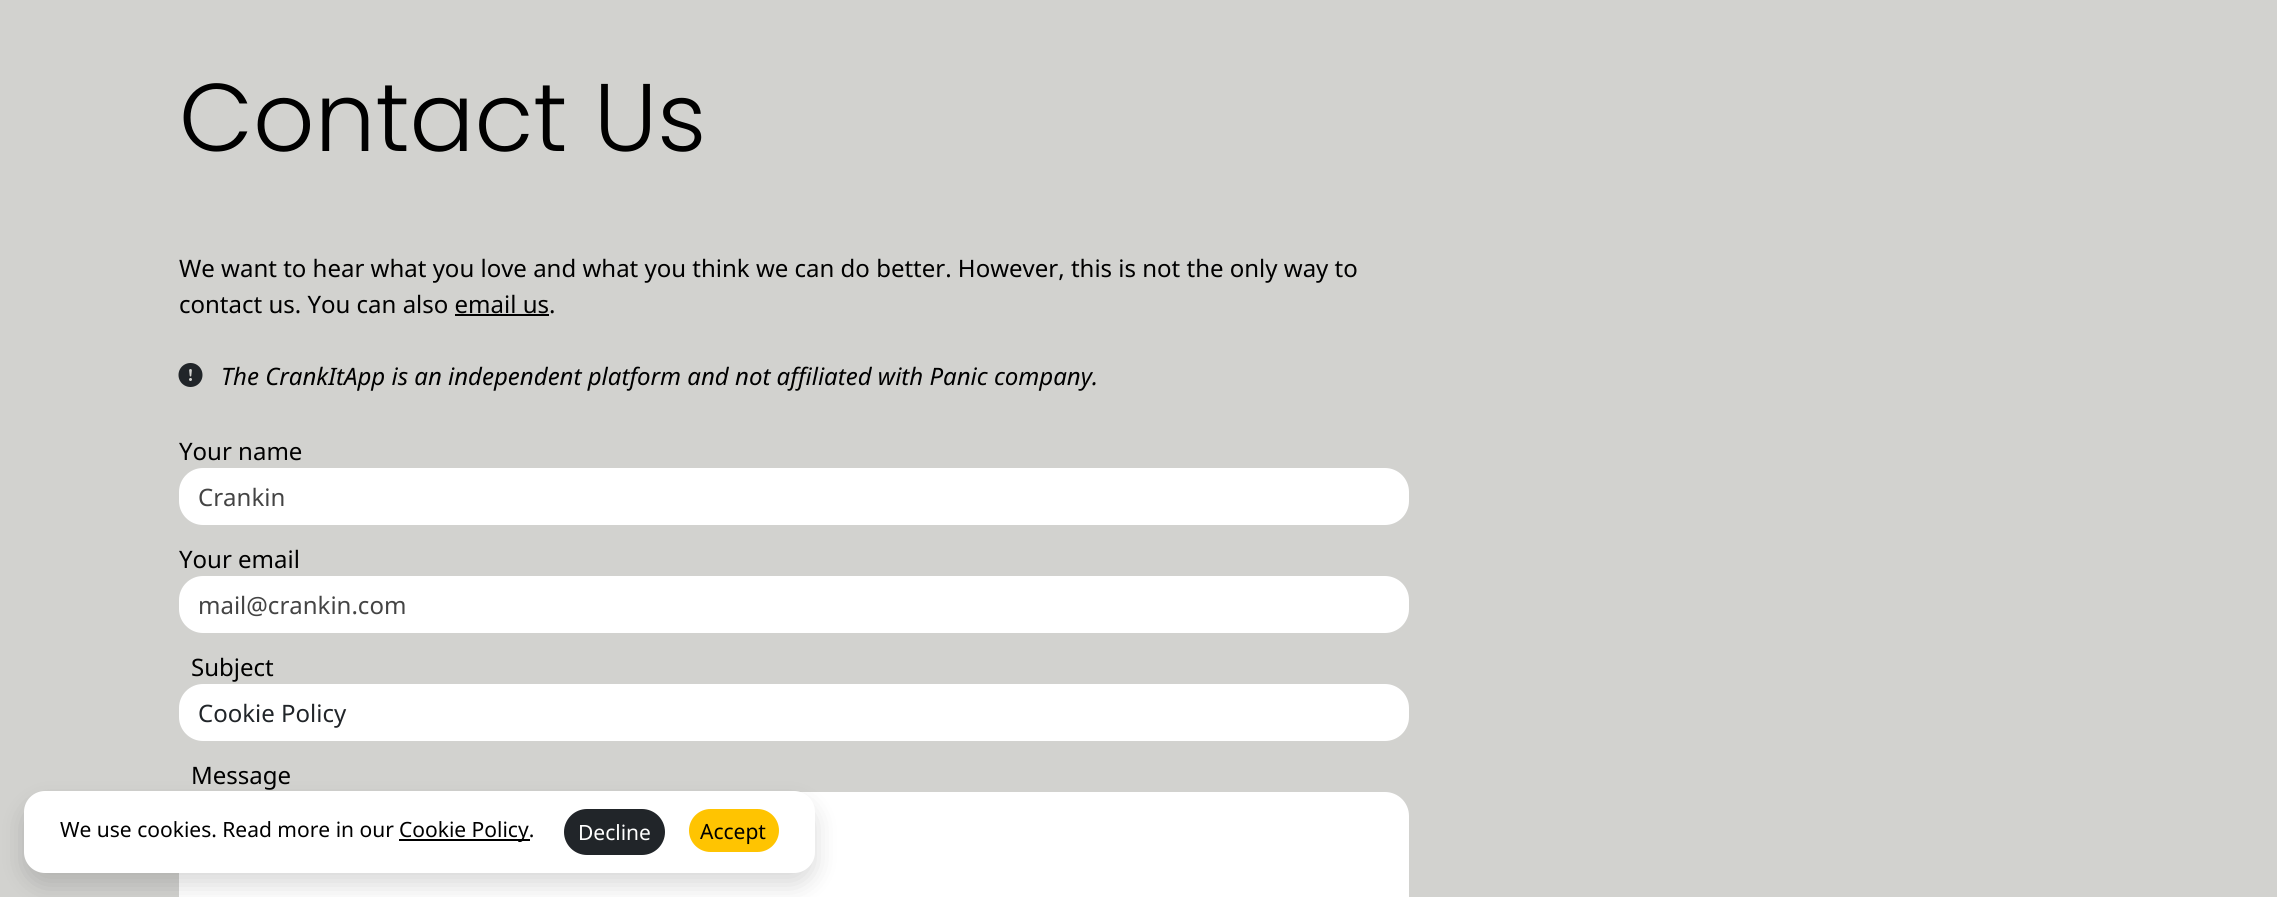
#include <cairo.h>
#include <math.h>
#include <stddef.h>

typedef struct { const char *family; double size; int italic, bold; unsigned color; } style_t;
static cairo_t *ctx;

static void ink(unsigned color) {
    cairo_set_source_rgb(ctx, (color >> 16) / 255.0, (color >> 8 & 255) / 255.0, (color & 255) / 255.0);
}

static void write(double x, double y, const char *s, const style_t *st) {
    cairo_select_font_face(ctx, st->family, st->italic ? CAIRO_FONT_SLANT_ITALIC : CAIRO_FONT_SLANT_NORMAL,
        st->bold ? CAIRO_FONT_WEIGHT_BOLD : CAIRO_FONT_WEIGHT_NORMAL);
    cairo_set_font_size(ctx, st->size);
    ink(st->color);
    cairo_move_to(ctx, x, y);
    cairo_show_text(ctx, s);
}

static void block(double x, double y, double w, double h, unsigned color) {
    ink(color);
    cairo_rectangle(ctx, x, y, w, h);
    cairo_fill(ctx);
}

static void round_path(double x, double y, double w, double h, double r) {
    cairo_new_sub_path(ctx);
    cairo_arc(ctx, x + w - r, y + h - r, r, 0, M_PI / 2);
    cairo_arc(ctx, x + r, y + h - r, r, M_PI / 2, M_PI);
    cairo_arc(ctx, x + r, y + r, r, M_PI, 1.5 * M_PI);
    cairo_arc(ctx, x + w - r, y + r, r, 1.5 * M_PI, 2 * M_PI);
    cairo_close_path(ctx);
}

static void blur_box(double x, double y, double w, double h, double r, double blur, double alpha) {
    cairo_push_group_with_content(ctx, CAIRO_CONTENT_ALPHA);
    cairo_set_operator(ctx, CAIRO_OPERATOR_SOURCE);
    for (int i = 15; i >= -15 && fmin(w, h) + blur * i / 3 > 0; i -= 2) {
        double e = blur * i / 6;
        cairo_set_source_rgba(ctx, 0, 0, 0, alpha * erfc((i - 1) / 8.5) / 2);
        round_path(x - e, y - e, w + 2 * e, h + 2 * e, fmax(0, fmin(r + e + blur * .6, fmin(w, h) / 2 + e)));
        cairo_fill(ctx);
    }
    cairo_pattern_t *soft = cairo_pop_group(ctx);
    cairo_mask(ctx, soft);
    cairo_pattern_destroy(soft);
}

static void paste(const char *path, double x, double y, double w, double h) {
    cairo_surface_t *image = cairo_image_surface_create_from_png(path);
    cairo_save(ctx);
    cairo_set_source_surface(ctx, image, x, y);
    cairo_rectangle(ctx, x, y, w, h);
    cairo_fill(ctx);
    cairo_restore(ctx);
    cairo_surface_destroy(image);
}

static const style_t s1 = {"Poppins Light", 96, 0, 0, 0x000000};
static const style_t s2 = {"Noto Sans", 24, 0, 0, 0x000000};
static const style_t s3 = {"Noto Sans", 24, 1, 0, 0x000000};
static const style_t s4 = {"Noto Sans", 24, 0, 0, 0x444444};
static const style_t s5 = {"Noto Sans", 24, 0, 0, 0x212529};
static const style_t s6 = {"Noto Sans", 21, 0, 0, 0x000000};
static const style_t s7 = {"Noto Sans", 21, 0, 0, 0xffffff};

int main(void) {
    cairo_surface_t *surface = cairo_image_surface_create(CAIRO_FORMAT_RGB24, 2277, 897);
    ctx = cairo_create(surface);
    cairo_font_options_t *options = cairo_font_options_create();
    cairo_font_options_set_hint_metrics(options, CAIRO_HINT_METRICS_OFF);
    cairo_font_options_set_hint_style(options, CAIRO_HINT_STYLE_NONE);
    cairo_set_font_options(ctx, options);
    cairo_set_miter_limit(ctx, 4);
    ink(0xd2d2cf);
    cairo_paint(ctx);
    write(179, 151, "Contact Us", &s1);
    write(179, 277, "We want to hear what you love and what you think we can do better. However, this is not the only way to", &s2);
    write(179, 313, "contact us. You can also email us.", &s2);
    block(455, 314, 94, 2, 0x000000);
    paste("pic1.png", 178, 363, 25, 24);
    write(221, 385, "The CrankItApp is an independent platform and not affiliated with Panic company.", &s3);
    write(179, 460, "Your name", &s2);
    ink(0xffffff);
    round_path(180, 469, 1228, 55, 23);
    cairo_fill_preserve(ctx);
    cairo_stroke(ctx);
    write(198, 506, "Crankin", &s4);
    write(179, 568, "Your email", &s2);
    ink(0xffffff);
    round_path(180, 577, 1228, 55, 23);
    cairo_fill_preserve(ctx);
    cairo_stroke(ctx);
    write(198, 614, "mail@crankin.com", &s4);
    write(191, 676, "Subject", &s2);
    ink(0xffffff);
    round_path(180, 685, 1228, 55, 23);
    cairo_fill_preserve(ctx);
    cairo_stroke(ctx);
    write(198, 722, "Cookie Policy", &s5);
    write(191, 784, "Message", &s2);
    ink(0xffffff);
    round_path(180, 793, 1228, 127, 23);
    cairo_fill_preserve(ctx);
    cairo_stroke(ctx);
    ink(0x000000);
    blur_box(24, 803, 791, 82, 21, 12, 0.15);
    ink(0xffffff);
    round_path(24, 791, 791, 82, 21);
    cairo_fill(ctx);
    write(60, 837, "We use cookies. Read more in our", &s6);
    block(399, 839, 131, 2, 0x000000);
    write(399, 837, "Cookie Policy.", &s6);
    ink(0x212529);
    round_path(565, 810, 99, 44, 22);
    cairo_fill_preserve(ctx);
    cairo_stroke(ctx);
    write(578, 840, "Decline", &s7);
    ink(0xffc401);
    round_path(689, 809, 90, 43, 21.5);
    cairo_fill(ctx);
    write(700, 839, "Accept", &s6);
    cairo_surface_write_to_png(surface, "screenshot.png");
    cairo_font_options_destroy(options);
    cairo_destroy(ctx);
    cairo_surface_destroy(surface);
    return 0;
}
